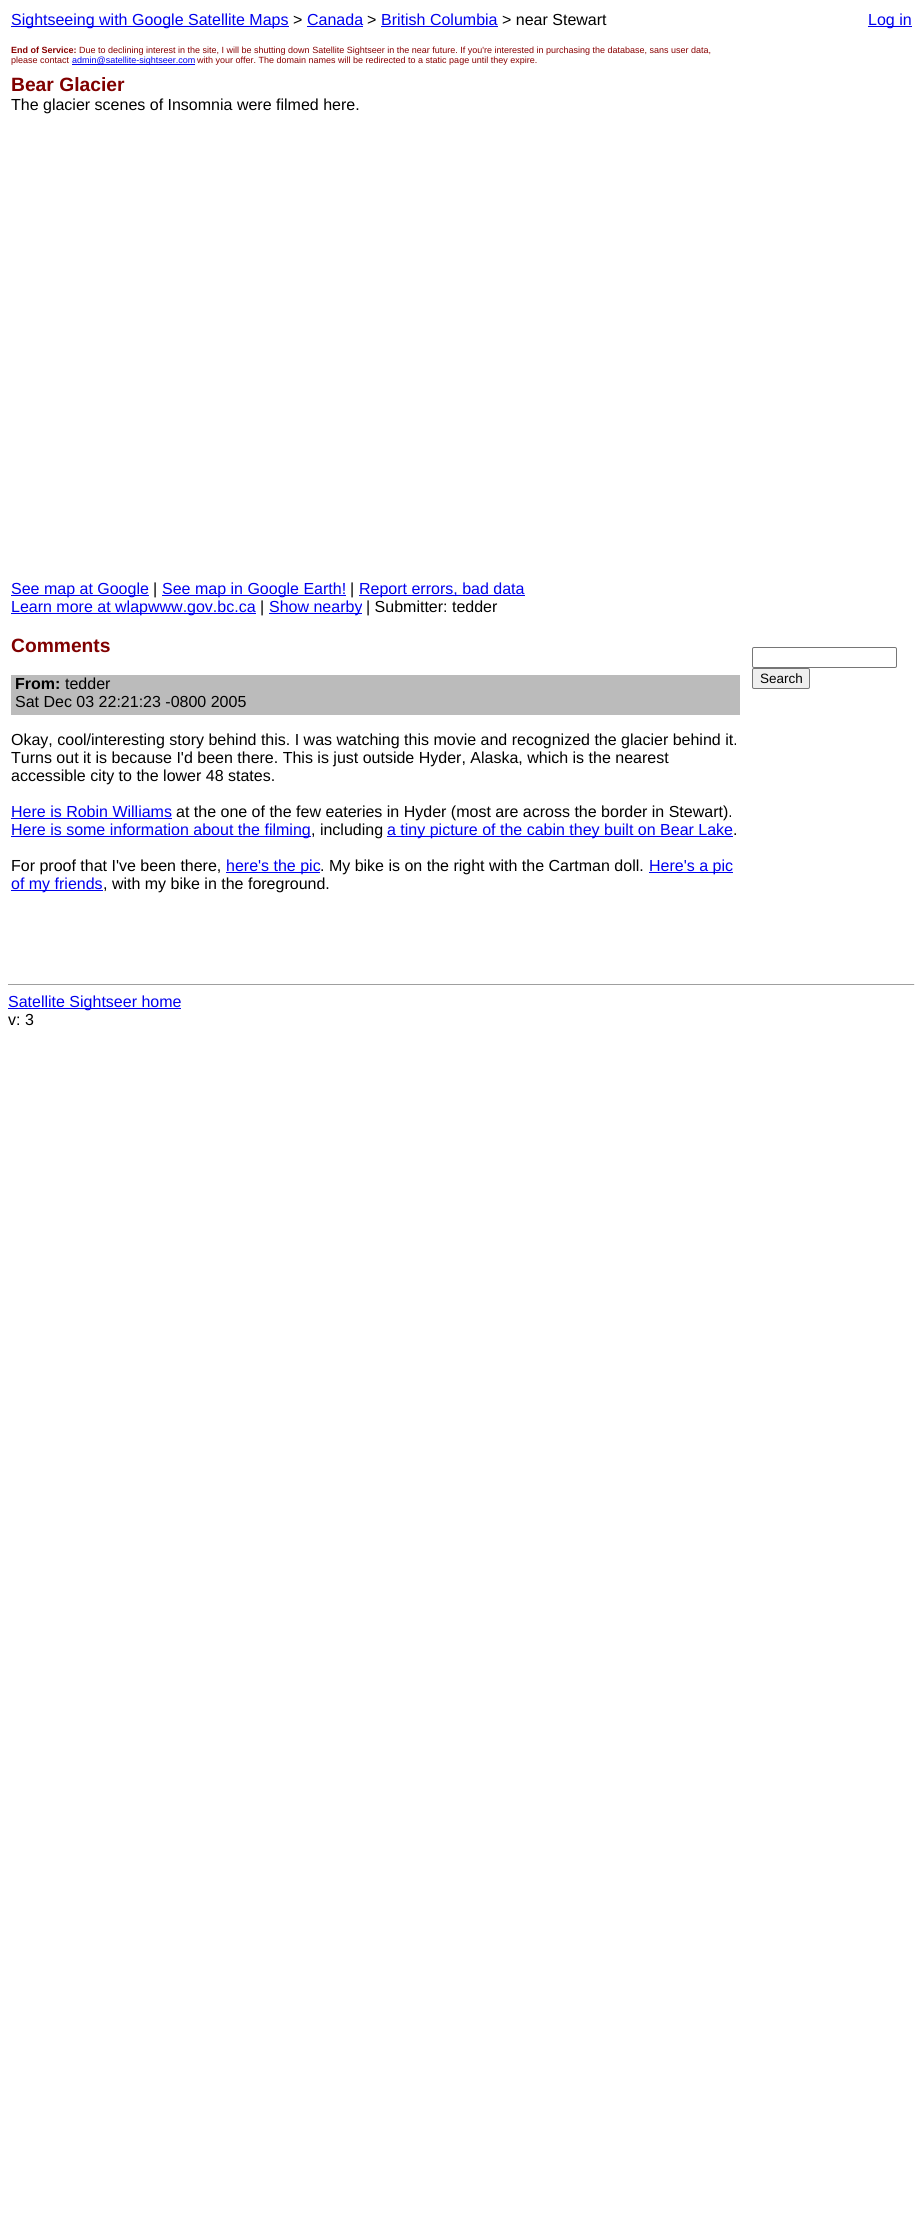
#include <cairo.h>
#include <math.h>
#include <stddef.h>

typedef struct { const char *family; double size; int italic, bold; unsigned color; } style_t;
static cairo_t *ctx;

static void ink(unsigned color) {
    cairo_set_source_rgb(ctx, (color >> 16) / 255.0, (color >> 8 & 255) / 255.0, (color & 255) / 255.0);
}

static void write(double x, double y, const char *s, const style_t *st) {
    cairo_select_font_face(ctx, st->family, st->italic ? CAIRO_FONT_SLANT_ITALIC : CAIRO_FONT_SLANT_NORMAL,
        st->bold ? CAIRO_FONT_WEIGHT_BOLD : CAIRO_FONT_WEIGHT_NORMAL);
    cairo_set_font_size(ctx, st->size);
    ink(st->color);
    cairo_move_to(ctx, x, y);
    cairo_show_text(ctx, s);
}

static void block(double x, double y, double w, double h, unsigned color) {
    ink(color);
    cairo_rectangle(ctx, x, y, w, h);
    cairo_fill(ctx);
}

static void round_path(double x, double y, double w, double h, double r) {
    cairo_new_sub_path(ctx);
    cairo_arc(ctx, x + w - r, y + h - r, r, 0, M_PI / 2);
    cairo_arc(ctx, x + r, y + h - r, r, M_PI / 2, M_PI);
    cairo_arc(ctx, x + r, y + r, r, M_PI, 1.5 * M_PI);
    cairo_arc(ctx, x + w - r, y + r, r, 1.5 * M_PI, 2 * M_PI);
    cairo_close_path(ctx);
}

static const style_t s1 = {"Liberation Sans", 16, 0, 0, 0x0000ee};
static const style_t s2 = {"Liberation Sans", 16, 0, 0, 0x000000};
static const style_t s3 = {"Liberation Sans", 9, 0, 1, 0x880000};
static const style_t s4 = {"Liberation Sans", 9, 0, 0, 0x880000};
static const style_t s5 = {"Liberation Sans", 9, 0, 0, 0x0000ee};
static const style_t s6 = {"Liberation Sans", 19.25, 0, 1, 0x800000};
static const style_t s7 = {"Liberation Sans", 16, 0, 1, 0x000000};
static const style_t s8 = {"Liberation Sans", 13.5, 0, 0, 0x000000};

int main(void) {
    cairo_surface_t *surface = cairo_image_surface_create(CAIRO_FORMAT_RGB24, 923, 2226);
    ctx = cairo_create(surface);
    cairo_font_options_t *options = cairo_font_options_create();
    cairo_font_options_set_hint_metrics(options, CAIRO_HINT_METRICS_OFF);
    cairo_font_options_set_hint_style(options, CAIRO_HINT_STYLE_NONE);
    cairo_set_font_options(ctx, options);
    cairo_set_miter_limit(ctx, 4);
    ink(0xffffff);
    cairo_paint(ctx);
    block(11, 26, 278, 1, 0x0000ee);
    write(11, 25, "Sightseeing with Google Satellite Maps", &s1);
    write(293, 25, ">", &s2);
    write(307, 25, "Canada", &s1);
    block(307, 26, 56, 1, 0x0000ee);
    write(367, 25, ">", &s2);
    write(381, 25, "British Columbia", &s1);
    block(381, 26, 117, 1, 0x0000ee);
    write(502, 25, "> near Stewart", &s2);
    write(11, 53, "End of Service:", &s3);
    write(79, 53, "Due to declining interest in the site, I will be shutting down Satellite Sightseer in the near future. If you're interested in purchasing the database, sans user data,", &s4);
    write(11, 63, "please contact", &s4);
    block(72, 64, 123, 1, 0x0000ee);
    write(72, 63, "admin@satellite-sightseer.com", &s5);
    write(197, 63, "with your offer. The domain names will be redirected to a static page until they expire.", &s4);
    write(11, 91, "Bear Glacier", &s6);
    write(11, 110, "The glacier scenes of Insomnia were filmed here.", &s2);
    block(11, 595, 138, 1, 0x0000ee);
    write(11, 594, "See map at Google", &s1);
    write(153, 594, "|", &s2);
    block(162, 595, 184, 1, 0x0000ee);
    write(162, 594, "See map in Google Earth!", &s1);
    write(350, 594, "|", &s2);
    block(359, 595, 166, 1, 0x0000ee);
    write(359, 594, "Report errors, bad data", &s1);
    block(11, 613, 245, 1, 0x0000ee);
    write(11, 612, "Learn more at wlapwww.gov.bc.ca", &s1);
    write(260, 612, "|", &s2);
    block(269, 613, 93, 1, 0x0000ee);
    write(269, 612, "Show nearby", &s1);
    write(366, 612, "| Submitter: tedder", &s2);
    write(11, 652, "Comments", &s6);
    block(11, 675, 729, 40, 0xbbbbbb);
    write(15, 689, "From:", &s7);
    write(65, 689, "tedder", &s2);
    write(15, 707, "Sat Dec 03 22:21:23 -0800 2005", &s2);
    write(11, 745, "Okay, cool/interesting story behind this. I was watching this movie and recognized the glacier behind it.", &s2);
    write(11, 763, "Turns out it is because I'd been there. This is just outside Hyder, Alaska, which is the nearest", &s2);
    write(11, 781, "accessible city to the lower 48 states.", &s2);
    write(11, 817, "Here is Robin Williams", &s1);
    block(11, 818, 161, 1, 0x0000ee);
    write(176, 817, "at the one of the few eateries in Hyder (most are across the border in Stewart).", &s2);
    block(11, 836, 300, 1, 0x0000ee);
    write(11, 835, "Here is some information about the filming", &s1);
    write(311, 835, ", including", &s2);
    block(387, 836, 346, 1, 0x0000ee);
    write(387, 835, "a tiny picture of the cabin they built on Bear Lake", &s1);
    write(733, 835, ".", &s2);
    write(11, 871, "For proof that I've been there,", &s2);
    block(226, 872, 94, 1, 0x0000ee);
    write(226, 871, "here's the pic", &s1);
    write(320, 871, ". My bike is on the right with the Cartman doll.", &s2);
    block(649, 872, 84, 1, 0x0000ee);
    write(649, 871, "Here's a pic", &s1);
    block(11, 890, 92, 1, 0x0000ee);
    write(11, 889, "of my friends", &s1);
    write(103, 889, ", with my bike in the foreground.", &s2);
    block(868, 26, 44, 1, 0x0000ee);
    write(868, 25, "Log in", &s1);
    round_path(752.5, 647.5, 144, 20, 1.5);
    ink(0x767676);
    cairo_set_line_width(ctx, 1);
    cairo_stroke(ctx);
    ink(0xefefef);
    round_path(752.5, 668.5, 57, 20, 1.5);
    cairo_fill_preserve(ctx);
    ink(0x767676);
    cairo_stroke(ctx);
    write(760, 683, "Search", &s8);
    block(8, 984, 907, 1, 0x9f9f9f);
    block(914, 984, 1, 1, 0xeeeeee);
    block(8, 1008, 173, 1, 0x0000ee);
    write(8, 1007, "Satellite Sightseer home", &s1);
    write(8, 1025, "v: 3", &s2);
    cairo_surface_write_to_png(surface, "screenshot.png");
    cairo_font_options_destroy(options);
    cairo_destroy(ctx);
    cairo_surface_destroy(surface);
    return 0;
}
